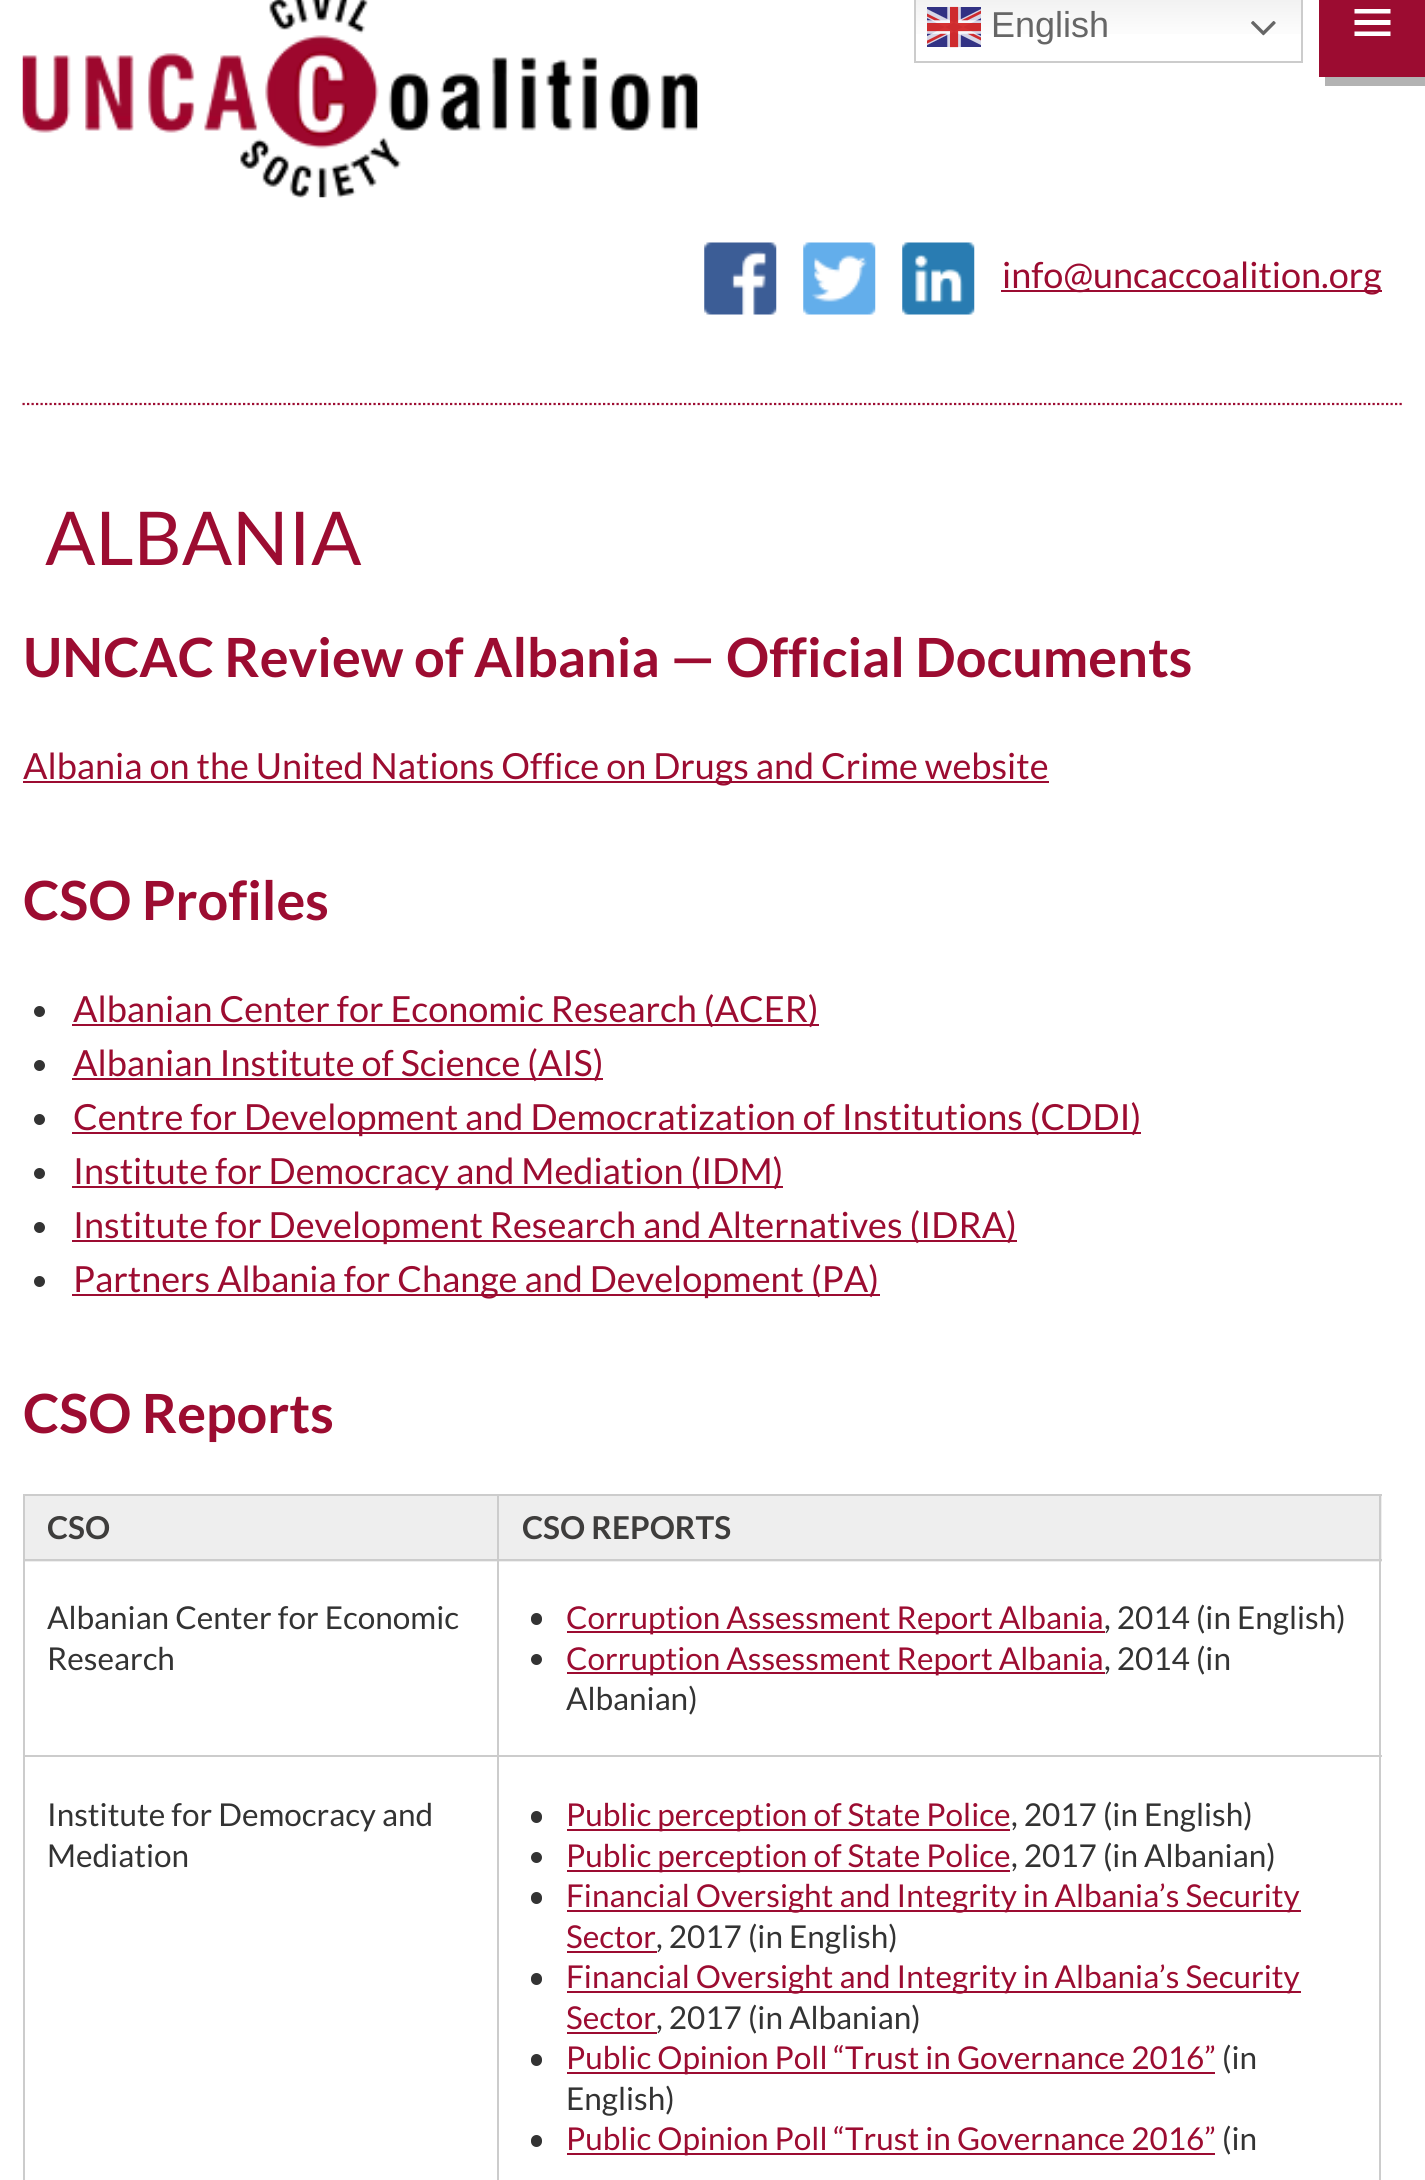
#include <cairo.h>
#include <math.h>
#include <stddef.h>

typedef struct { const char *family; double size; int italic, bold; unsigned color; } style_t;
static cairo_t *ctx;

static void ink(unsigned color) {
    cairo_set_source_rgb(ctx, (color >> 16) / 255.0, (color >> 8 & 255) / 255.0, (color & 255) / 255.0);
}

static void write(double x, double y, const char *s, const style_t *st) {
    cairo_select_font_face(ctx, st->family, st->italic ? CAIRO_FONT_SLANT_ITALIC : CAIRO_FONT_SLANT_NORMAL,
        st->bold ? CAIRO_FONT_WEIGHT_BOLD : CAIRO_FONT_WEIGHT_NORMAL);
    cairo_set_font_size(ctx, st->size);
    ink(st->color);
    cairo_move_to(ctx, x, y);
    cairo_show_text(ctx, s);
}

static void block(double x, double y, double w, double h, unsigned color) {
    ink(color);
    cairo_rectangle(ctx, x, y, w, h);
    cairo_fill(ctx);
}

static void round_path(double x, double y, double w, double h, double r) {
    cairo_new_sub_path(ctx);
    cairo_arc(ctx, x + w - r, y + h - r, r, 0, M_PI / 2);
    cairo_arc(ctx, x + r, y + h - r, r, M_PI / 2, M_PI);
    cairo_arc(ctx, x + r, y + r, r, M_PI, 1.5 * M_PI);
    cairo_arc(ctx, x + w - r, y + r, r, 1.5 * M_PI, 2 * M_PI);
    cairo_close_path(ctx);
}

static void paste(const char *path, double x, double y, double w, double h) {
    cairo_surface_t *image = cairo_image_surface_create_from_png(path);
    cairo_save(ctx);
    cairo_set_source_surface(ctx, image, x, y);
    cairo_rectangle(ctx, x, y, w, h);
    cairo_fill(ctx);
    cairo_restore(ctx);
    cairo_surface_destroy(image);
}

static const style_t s1 = {"Liberation Sans", 36, 0, 0, 0x666666};
static const style_t s2 = {"Lato", 36, 0, 0, 0x9c0c31};
static const style_t s3 = {"Lato", 74.25, 0, 0, 0x9c0c31};
static const style_t s4 = {"Lato", 54, 0, 1, 0x9c0c31};
static const style_t s5 = {"Lato", 31.5, 0, 1, 0x3e3d3c};
static const style_t s6 = {"Lato", 31.5, 0, 0, 0x333333};
static const style_t s7 = {"Lato", 31.5, 0, 0, 0x9c0c31};

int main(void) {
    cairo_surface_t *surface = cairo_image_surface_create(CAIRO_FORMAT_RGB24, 1425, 2180);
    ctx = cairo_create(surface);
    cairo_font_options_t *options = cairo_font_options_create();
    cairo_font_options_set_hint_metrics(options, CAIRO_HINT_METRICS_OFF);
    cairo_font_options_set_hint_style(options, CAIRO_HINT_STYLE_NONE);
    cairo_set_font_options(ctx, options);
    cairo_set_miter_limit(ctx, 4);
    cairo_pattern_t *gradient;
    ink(0xffffff);
    cairo_paint(ctx);
    ink(0xb3b3b3);
    cairo_new_path(ctx);
    cairo_move_to(ctx, 1325, 76);
    cairo_line_to(ctx, 1325, 86);
    cairo_line_to(ctx, 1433, 86);
    cairo_line_to(ctx, 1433, -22);
    cairo_line_to(ctx, 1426, -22);
    cairo_line_to(ctx, 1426, 76);
    cairo_close_path(ctx);
    cairo_fill(ctx);
    block(1319, 0, 106, 77, 0x9c0c31);
    ink(0xffffff);
    cairo_new_path(ctx);
    cairo_move_to(ctx, 1354.5, 36);
    cairo_line_to(ctx, 1354.5, 31.5);
    cairo_line_to(ctx, 1390.5, 31.5);
    cairo_line_to(ctx, 1390.5, 36);
    cairo_close_path(ctx);
    cairo_move_to(ctx, 1354.5, 25);
    cairo_line_to(ctx, 1354.5, 20);
    cairo_line_to(ctx, 1390.5, 20);
    cairo_line_to(ctx, 1390.5, 25);
    cairo_close_path(ctx);
    cairo_move_to(ctx, 1354.5, 13.5);
    cairo_line_to(ctx, 1354.5, 9);
    cairo_line_to(ctx, 1390.5, 9);
    cairo_line_to(ctx, 1390.5, 13.5);
    cairo_close_path(ctx);
    cairo_fill(ctx);
    paste("pic1.png", 22, 0, 676, 198);
    gradient = cairo_pattern_create_linear(1108, -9, 1108, 63);
    cairo_pattern_add_color_stop_rgba(gradient, 0, 0.937, 0.937, 0.937, 1);
    cairo_pattern_add_color_stop_rgba(gradient, 0.7, 1, 1, 1, 1);
    cairo_set_source(ctx, gradient);
    cairo_pattern_destroy(gradient);
    cairo_rectangle(ctx, 916, 0, 385, 34);
    cairo_fill(ctx);
    cairo_rectangle(ctx, 915, -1, 387, 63);
    ink(0xcccccc);
    cairo_stroke(ctx);
    paste("pic2.png", 927, 6, 54, 42);
    write(991, 37, "English", &s1);
    paste("pic3.png", 1251, 21, 25, 15);
    paste("pic4.png", 704, 242, 73, 73);
    paste("pic5.png", 803, 242, 73, 73);
    paste("pic6.png", 902, 242, 73, 73);
    block(1001, 290, 381, 2, 0x9c0c31);
    write(1002, 288, "info@uncaccoalition.org", &s2);
    cairo_new_path(ctx);
    cairo_move_to(ctx, 22.5, 404);
    cairo_line_to(ctx, 1404, 404);
    cairo_set_line_width(ctx, 2.2);
    cairo_set_dash(ctx, (double[]){2.25, 2.25}, 2, 0);
    cairo_stroke(ctx);
    write(45, 565, "ALBANIA", &s3);
    write(23, 677, "UNCAC Review of Albania — Official Documents", &s4);
    block(23, 781, 1026, 2, 0x9c0c31);
    write(23, 779, "Albania on the United Nations Office on Drugs and Crime website", &s2);
    write(23, 920, "CSO Profiles", &s4);
    ink(0x333333);
    cairo_new_path(ctx);
    cairo_arc(ctx, 39.5, 1011.5, 5.5, 0, 2 * M_PI);
    cairo_fill(ctx);
    block(72, 1024, 747, 2, 0x9c0c31);
    write(73, 1022, "Albanian Center for Economic Research (ACER)", &s2);
    ink(0x333333);
    cairo_new_path(ctx);
    cairo_arc(ctx, 39.5, 1065.5, 5.5, 0, 2 * M_PI);
    cairo_fill(ctx);
    block(72, 1078, 531, 2, 0x9c0c31);
    write(73, 1076, "Albanian Institute of Science (AIS)", &s2);
    ink(0x333333);
    cairo_new_path(ctx);
    cairo_arc(ctx, 39.5, 1119.5, 5.5, 0, 2 * M_PI);
    cairo_fill(ctx);
    block(72, 1132, 1069, 2, 0x9c0c31);
    write(73, 1130, "Centre for Development and Democratization of Institutions (CDDI)", &s2);
    ink(0x333333);
    cairo_new_path(ctx);
    cairo_arc(ctx, 39.5, 1173.5, 5.5, 0, 2 * M_PI);
    cairo_fill(ctx);
    block(72, 1186, 711, 2, 0x9c0c31);
    write(73, 1184, "Institute for Democracy and Mediation (IDM)", &s2);
    ink(0x333333);
    cairo_new_path(ctx);
    cairo_arc(ctx, 39.5, 1227.5, 5.5, 0, 2 * M_PI);
    cairo_fill(ctx);
    block(72, 1240, 945, 2, 0x9c0c31);
    write(73, 1238, "Institute for Development Research and Alternatives (IDRA)", &s2);
    ink(0x333333);
    cairo_new_path(ctx);
    cairo_arc(ctx, 39.5, 1281.5, 5.5, 0, 2 * M_PI);
    cairo_fill(ctx);
    block(72, 1294, 808, 2, 0x9c0c31);
    write(73, 1292, "Partners Albania for Change and Development (PA)", &s2);
    write(23, 1433, "CSO Reports", &s4);
    block(23, 1494, 1359, 2, 0xcccccc);
    block(25, 1496, 1357, 66, 0xeeeeee);
    block(1379, 1494, 2, 686, 0xcccccc);
    block(23, 1494, 2, 686, 0xcccccc);
    write(47, 1539, "CSO", &s5);
    block(497, 1559, 885, 2, 0xcccccc);
    block(497, 1755, 885, 2, 0xcccccc);
    block(497, 1755, 2, 425, 0xcccccc);
    block(23, 1755, 477, 2, 0xcccccc);
    block(497, 1559, 2, 198, 0xcccccc);
    block(23, 1559, 477, 2, 0xcccccc);
    block(497, 1494, 2, 68, 0xcccccc);
    write(522, 1539, "CSO REPORTS", &s5);
    write(47, 1629, "Albanian Center for Economic", &s6);
    write(47, 1670, "Research", &s6);
    round_path(531, 1613, 11, 12, 5.5);
    cairo_fill(ctx);
    block(567, 1631, 538, 2, 0x9c0c31);
    write(566, 1629, "Corruption Assessment Report Albania", &s7);
    write(1104, 1629, ", 2014 (in English)", &s6);
    cairo_new_path(ctx);
    cairo_arc(ctx, 536.5, 1659.5, 5.5, 0, 2 * M_PI);
    cairo_fill(ctx);
    block(567, 1672, 538, 2, 0x9c0c31);
    write(566, 1670, "Corruption Assessment Report Albania", &s7);
    write(1104, 1670, ", 2014 (in", &s6);
    write(566, 1710, "Albanian)", &s6);
    write(47, 1826, "Institute for Democracy and", &s6);
    write(47, 1867, "Mediation", &s6);
    round_path(531, 1811, 11, 12, 5.5);
    cairo_fill(ctx);
    block(567, 1829, 443, 2, 0x9c0c31);
    write(566, 1826, "Public perception of State Police", &s7);
    write(1011, 1826, ", 2017 (in English)", &s6);
    cairo_new_path(ctx);
    cairo_arc(ctx, 536.5, 1857.5, 5.5, 0, 2 * M_PI);
    cairo_fill(ctx);
    block(567, 1870, 443, 2, 0x9c0c31);
    write(566, 1867, "Public perception of State Police", &s7);
    write(1011, 1867, ", 2017 (in Albanian)", &s6);
    round_path(531, 1892, 11, 12, 5.5);
    cairo_fill(ctx);
    block(567, 1910, 734, 2, 0x9c0c31);
    write(566, 1907, "Financial Oversight and Integrity in Albania’s Security", &s7);
    write(566, 1948, "Sector", &s7);
    block(567, 1951, 90, 2, 0x9c0c31);
    write(656, 1948, ", 2017 (in English)", &s6);
    round_path(531, 1973, 11, 12, 5.5);
    cairo_fill(ctx);
    block(567, 1991, 734, 2, 0x9c0c31);
    write(566, 1988, "Financial Oversight and Integrity in Albania’s Security", &s7);
    write(566, 2029, "Sector", &s7);
    block(567, 2032, 90, 2, 0x9c0c31);
    write(656, 2029, ", 2017 (in Albanian)", &s6);
    round_path(531, 2054, 11, 12, 5.5);
    cairo_fill(ctx);
    block(567, 2072, 648, 2, 0x9c0c31);
    write(566, 2069, "Public Opinion Poll “Trust in Governance 2016”", &s7);
    write(1222, 2069, "(in", &s6);
    write(566, 2110, "English)", &s6);
    round_path(531, 2135, 11, 12, 5.5);
    cairo_fill(ctx);
    block(567, 2153, 648, 2, 0x9c0c31);
    write(566, 2150, "Public Opinion Poll “Trust in Governance 2016”", &s7);
    write(1222, 2150, "(in", &s6);
    cairo_surface_write_to_png(surface, "screenshot.png");
    cairo_font_options_destroy(options);
    cairo_destroy(ctx);
    cairo_surface_destroy(surface);
    return 0;
}
